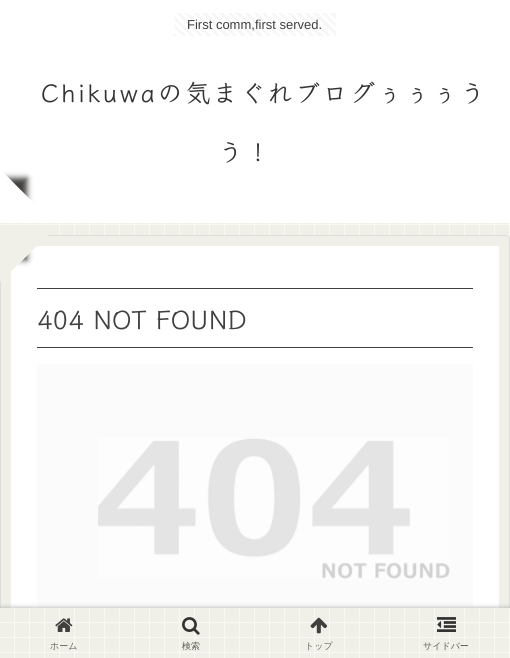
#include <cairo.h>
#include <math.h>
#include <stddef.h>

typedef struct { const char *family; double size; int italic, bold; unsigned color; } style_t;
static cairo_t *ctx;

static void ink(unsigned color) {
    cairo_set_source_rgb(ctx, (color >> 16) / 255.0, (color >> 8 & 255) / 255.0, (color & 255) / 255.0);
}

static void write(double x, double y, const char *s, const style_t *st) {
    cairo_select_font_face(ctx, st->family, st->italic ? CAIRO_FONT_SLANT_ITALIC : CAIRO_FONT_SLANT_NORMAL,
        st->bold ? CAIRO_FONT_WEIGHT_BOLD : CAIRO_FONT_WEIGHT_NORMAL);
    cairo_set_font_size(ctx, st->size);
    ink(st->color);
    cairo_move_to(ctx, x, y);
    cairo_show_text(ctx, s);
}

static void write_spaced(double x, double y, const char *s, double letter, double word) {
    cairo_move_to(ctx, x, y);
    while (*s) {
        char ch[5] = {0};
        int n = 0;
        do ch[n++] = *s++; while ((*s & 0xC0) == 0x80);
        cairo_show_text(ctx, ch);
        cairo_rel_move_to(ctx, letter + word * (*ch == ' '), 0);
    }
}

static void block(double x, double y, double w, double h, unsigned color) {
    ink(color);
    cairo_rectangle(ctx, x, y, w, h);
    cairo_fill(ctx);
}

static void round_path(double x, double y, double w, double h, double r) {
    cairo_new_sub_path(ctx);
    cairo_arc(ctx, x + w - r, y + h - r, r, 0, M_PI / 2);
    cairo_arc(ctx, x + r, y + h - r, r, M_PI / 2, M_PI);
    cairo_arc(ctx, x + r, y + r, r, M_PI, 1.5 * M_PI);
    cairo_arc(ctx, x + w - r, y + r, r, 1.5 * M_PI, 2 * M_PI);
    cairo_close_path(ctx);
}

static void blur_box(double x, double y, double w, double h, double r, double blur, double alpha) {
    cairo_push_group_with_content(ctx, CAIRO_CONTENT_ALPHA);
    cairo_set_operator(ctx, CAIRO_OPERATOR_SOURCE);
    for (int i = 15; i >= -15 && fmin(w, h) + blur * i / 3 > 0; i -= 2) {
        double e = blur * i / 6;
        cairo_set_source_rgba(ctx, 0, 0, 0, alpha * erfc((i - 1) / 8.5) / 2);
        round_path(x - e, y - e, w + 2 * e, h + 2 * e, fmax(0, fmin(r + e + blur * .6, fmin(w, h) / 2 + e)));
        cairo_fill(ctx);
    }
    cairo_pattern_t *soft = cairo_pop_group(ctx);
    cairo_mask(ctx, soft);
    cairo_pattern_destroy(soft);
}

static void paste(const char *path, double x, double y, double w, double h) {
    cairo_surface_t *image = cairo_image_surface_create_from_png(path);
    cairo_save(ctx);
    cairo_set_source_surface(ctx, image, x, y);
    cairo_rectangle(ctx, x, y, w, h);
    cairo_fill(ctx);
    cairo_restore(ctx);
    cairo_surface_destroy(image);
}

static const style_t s1 = {"Liberation Sans", 13, 0, 0, 0x41403e};
static const style_t s2 = {"Klee One SemiBold", 26, 0, 0, 0x41403e};
static const style_t s3 = {"WenQuanYi Zen Hei Medium", 9, 0, 0, 0x646360};
static const style_t s4 = {"WenQuanYi Zen Hei Medium", 9, 0, 0, 0x595957};

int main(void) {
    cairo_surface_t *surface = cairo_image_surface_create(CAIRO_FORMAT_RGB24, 510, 658);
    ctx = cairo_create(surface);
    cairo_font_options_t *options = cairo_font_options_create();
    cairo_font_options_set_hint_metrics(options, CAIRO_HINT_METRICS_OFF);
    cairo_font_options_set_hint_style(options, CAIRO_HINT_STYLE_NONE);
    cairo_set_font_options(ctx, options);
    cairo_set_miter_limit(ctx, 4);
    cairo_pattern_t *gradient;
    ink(0xf0f0e8);
    cairo_paint(ctx);
    paste("pic1.png", 14, 223, 496, 16);
    paste("pic2.png", 0, 224, 510, 1);
    block(0, 0, 510, 223, 0xffffff);
    gradient = cairo_pattern_create_linear(209, 71, 302, -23);
    cairo_pattern_add_color_stop_rgba(gradient, 0, 0.969, 0.969, 0.969, 1);
    cairo_pattern_add_color_stop_rgba(gradient, 0.02, 0.969, 0.969, 0.969, 1);
    cairo_pattern_add_color_stop_rgba(gradient, 0.02, 1, 1, 1, 1);
    cairo_pattern_add_color_stop_rgba(gradient, 0.05, 1, 1, 1, 1);
    cairo_pattern_add_color_stop_rgba(gradient, 0.05, 0.969, 0.969, 0.969, 1);
    cairo_pattern_add_color_stop_rgba(gradient, 0.07, 0.969, 0.969, 0.969, 1);
    cairo_pattern_add_color_stop_rgba(gradient, 0.07, 1, 1, 1, 1);
    cairo_pattern_add_color_stop_rgba(gradient, 0.09, 1, 1, 1, 1);
    cairo_pattern_add_color_stop_rgba(gradient, 0.09, 0.969, 0.969, 0.969, 1);
    cairo_pattern_add_color_stop_rgba(gradient, 0.11, 0.969, 0.969, 0.969, 1);
    cairo_pattern_add_color_stop_rgba(gradient, 0.11, 1, 1, 1, 1);
    cairo_pattern_add_color_stop_rgba(gradient, 0.14, 1, 1, 1, 1);
    cairo_pattern_add_color_stop_rgba(gradient, 0.14, 0.969, 0.969, 0.969, 1);
    cairo_pattern_add_color_stop_rgba(gradient, 0.16, 0.969, 0.969, 0.969, 1);
    cairo_pattern_add_color_stop_rgba(gradient, 0.16, 1, 1, 1, 1);
    cairo_pattern_add_color_stop_rgba(gradient, 0.18, 1, 1, 1, 1);
    cairo_pattern_add_color_stop_rgba(gradient, 0.18, 0.969, 0.969, 0.969, 1);
    cairo_pattern_add_color_stop_rgba(gradient, 0.2, 0.969, 0.969, 0.969, 1);
    cairo_pattern_add_color_stop_rgba(gradient, 0.2, 1, 1, 1, 1);
    cairo_pattern_add_color_stop_rgba(gradient, 0.23, 1, 1, 1, 1);
    cairo_pattern_add_color_stop_rgba(gradient, 0.23, 0.969, 0.969, 0.969, 1);
    cairo_pattern_add_color_stop_rgba(gradient, 0.25, 0.969, 0.969, 0.969, 1);
    cairo_pattern_add_color_stop_rgba(gradient, 0.25, 1, 1, 1, 1);
    cairo_pattern_add_color_stop_rgba(gradient, 0.27, 1, 1, 1, 1);
    cairo_pattern_add_color_stop_rgba(gradient, 0.27, 0.969, 0.969, 0.969, 1);
    cairo_pattern_add_color_stop_rgba(gradient, 0.3, 0.969, 0.969, 0.969, 1);
    cairo_pattern_add_color_stop_rgba(gradient, 0.3, 1, 1, 1, 1);
    cairo_pattern_add_color_stop_rgba(gradient, 0.32, 1, 1, 1, 1);
    cairo_pattern_add_color_stop_rgba(gradient, 0.32, 0.969, 0.969, 0.969, 1);
    cairo_pattern_add_color_stop_rgba(gradient, 0.34, 0.969, 0.969, 0.969, 1);
    cairo_pattern_add_color_stop_rgba(gradient, 0.34, 1, 1, 1, 1);
    cairo_pattern_add_color_stop_rgba(gradient, 0.36, 1, 1, 1, 1);
    cairo_pattern_add_color_stop_rgba(gradient, 0.36, 0.969, 0.969, 0.969, 1);
    cairo_pattern_add_color_stop_rgba(gradient, 0.39, 0.969, 0.969, 0.969, 1);
    cairo_pattern_add_color_stop_rgba(gradient, 0.39, 1, 1, 1, 1);
    cairo_pattern_add_color_stop_rgba(gradient, 0.41, 1, 1, 1, 1);
    cairo_pattern_add_color_stop_rgba(gradient, 0.41, 0.969, 0.969, 0.969, 1);
    cairo_pattern_add_color_stop_rgba(gradient, 0.43, 0.969, 0.969, 0.969, 1);
    cairo_pattern_add_color_stop_rgba(gradient, 0.43, 1, 1, 1, 1);
    cairo_pattern_add_color_stop_rgba(gradient, 0.45, 1, 1, 1, 1);
    cairo_pattern_add_color_stop_rgba(gradient, 0.45, 0.969, 0.969, 0.969, 1);
    cairo_pattern_add_color_stop_rgba(gradient, 0.48, 0.969, 0.969, 0.969, 1);
    cairo_pattern_add_color_stop_rgba(gradient, 0.48, 1, 1, 1, 1);
    cairo_pattern_add_color_stop_rgba(gradient, 0.5, 1, 1, 1, 1);
    cairo_pattern_add_color_stop_rgba(gradient, 0.5, 0.969, 0.969, 0.969, 1);
    cairo_pattern_add_color_stop_rgba(gradient, 0.52, 0.969, 0.969, 0.969, 1);
    cairo_pattern_add_color_stop_rgba(gradient, 0.52, 1, 1, 1, 1);
    cairo_pattern_add_color_stop_rgba(gradient, 0.55, 1, 1, 1, 1);
    cairo_pattern_add_color_stop_rgba(gradient, 0.55, 0.969, 0.969, 0.969, 1);
    cairo_pattern_add_color_stop_rgba(gradient, 0.57, 0.969, 0.969, 0.969, 1);
    cairo_pattern_add_color_stop_rgba(gradient, 0.57, 1, 1, 1, 1);
    cairo_pattern_add_color_stop_rgba(gradient, 0.59, 1, 1, 1, 1);
    cairo_pattern_add_color_stop_rgba(gradient, 0.59, 0.969, 0.969, 0.969, 1);
    cairo_pattern_add_color_stop_rgba(gradient, 0.61, 0.969, 0.969, 0.969, 1);
    cairo_pattern_add_color_stop_rgba(gradient, 0.61, 1, 1, 1, 1);
    cairo_pattern_add_color_stop_rgba(gradient, 0.64, 1, 1, 1, 1);
    cairo_pattern_add_color_stop_rgba(gradient, 0.64, 0.969, 0.969, 0.969, 1);
    cairo_pattern_add_color_stop_rgba(gradient, 0.66, 0.969, 0.969, 0.969, 1);
    cairo_pattern_add_color_stop_rgba(gradient, 0.66, 1, 1, 1, 1);
    cairo_pattern_add_color_stop_rgba(gradient, 0.68, 1, 1, 1, 1);
    cairo_pattern_add_color_stop_rgba(gradient, 0.68, 0.969, 0.969, 0.969, 1);
    cairo_pattern_add_color_stop_rgba(gradient, 0.7, 0.969, 0.969, 0.969, 1);
    cairo_pattern_add_color_stop_rgba(gradient, 0.7, 1, 1, 1, 1);
    cairo_pattern_add_color_stop_rgba(gradient, 0.73, 1, 1, 1, 1);
    cairo_pattern_add_color_stop_rgba(gradient, 0.73, 0.969, 0.969, 0.969, 1);
    cairo_pattern_add_color_stop_rgba(gradient, 0.75, 0.969, 0.969, 0.969, 1);
    cairo_pattern_add_color_stop_rgba(gradient, 0.75, 1, 1, 1, 1);
    cairo_pattern_add_color_stop_rgba(gradient, 0.77, 1, 1, 1, 1);
    cairo_pattern_add_color_stop_rgba(gradient, 0.77, 0.969, 0.969, 0.969, 1);
    cairo_pattern_add_color_stop_rgba(gradient, 0.8, 0.969, 0.969, 0.969, 1);
    cairo_pattern_add_color_stop_rgba(gradient, 0.8, 1, 1, 1, 1);
    cairo_pattern_add_color_stop_rgba(gradient, 0.82, 1, 1, 1, 1);
    cairo_pattern_add_color_stop_rgba(gradient, 0.82, 0.969, 0.969, 0.969, 1);
    cairo_pattern_add_color_stop_rgba(gradient, 0.84, 0.969, 0.969, 0.969, 1);
    cairo_pattern_add_color_stop_rgba(gradient, 0.84, 1, 1, 1, 1);
    cairo_pattern_add_color_stop_rgba(gradient, 0.86, 1, 1, 1, 1);
    cairo_pattern_add_color_stop_rgba(gradient, 0.86, 0.969, 0.969, 0.969, 1);
    cairo_pattern_add_color_stop_rgba(gradient, 0.89, 0.969, 0.969, 0.969, 1);
    cairo_pattern_add_color_stop_rgba(gradient, 0.89, 1, 1, 1, 1);
    cairo_pattern_add_color_stop_rgba(gradient, 0.91, 1, 1, 1, 1);
    cairo_pattern_add_color_stop_rgba(gradient, 0.91, 0.969, 0.969, 0.969, 1);
    cairo_pattern_add_color_stop_rgba(gradient, 0.93, 0.969, 0.969, 0.969, 1);
    cairo_pattern_add_color_stop_rgba(gradient, 0.93, 1, 1, 1, 1);
    cairo_pattern_add_color_stop_rgba(gradient, 0.95, 1, 1, 1, 1);
    cairo_pattern_add_color_stop_rgba(gradient, 0.95, 0.969, 0.969, 0.969, 1);
    cairo_pattern_add_color_stop_rgba(gradient, 0.98, 0.969, 0.969, 0.969, 1);
    cairo_pattern_add_color_stop_rgba(gradient, 0.98, 1, 1, 1, 1);
    cairo_pattern_add_color_stop_rgba(gradient, 1, 1, 1, 1, 1);
    cairo_set_source(ctx, gradient);
    cairo_pattern_destroy(gradient);
    cairo_rectangle(ctx, 174, 13, 162, 23);
    cairo_fill(ctx);
    write(187, 29, "First comm,first served.", &s1);
    cairo_select_font_face(ctx, "Klee One SemiBold", CAIRO_FONT_SLANT_NORMAL, CAIRO_FONT_WEIGHT_NORMAL);
    cairo_set_font_size(ctx, 25);
    ink(0x333333);
    write_spaced(41, 102, "Chikuwaの気まぐれブログぅぅぅう", 2.5, 0);
    write_spaced(218, 161, "う！", 2.5, 0);
    ink(0xffffff);
    round_path(0, 235, 510, 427, 4);
    cairo_fill(ctx);
    cairo_new_path(ctx);
    cairo_move_to(ctx, 6, 241);
    cairo_line_to(ctx, 504, 241);
    cairo_line_to(ctx, 504, 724);
    cairo_line_to(ctx, 6, 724);
    cairo_close_path(ctx);
    ink(0xf0f0e8);
    cairo_set_line_width(ctx, 10);
    cairo_stroke(ctx);
    round_path(0.5, 235.5, 509, 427, 3.5);
    ink(0xdddddd);
    cairo_set_line_width(ctx, 1);
    cairo_stroke(ctx);
    cairo_save(ctx);
    cairo_set_fill_rule(ctx, CAIRO_FILL_RULE_EVEN_ODD);
    cairo_new_path(ctx);
    cairo_move_to(ctx, 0, 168);
    cairo_line_to(ctx, 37, 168);
    cairo_line_to(ctx, 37, 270);
    cairo_line_to(ctx, 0, 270);
    cairo_close_path(ctx);
    cairo_move_to(ctx, 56.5, 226);
    cairo_line_to(ctx, -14, 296.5);
    cairo_line_to(ctx, -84.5, 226);
    cairo_line_to(ctx, -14, 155);
    cairo_close_path(ctx);
    cairo_clip(ctx);
    ink(0x41403e);
    blur_box(-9, 178, 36, 82, 0, 3, 1);
    cairo_restore(ctx);
    ink(0xf0f0e8);
    cairo_new_path(ctx);
    cairo_move_to(ctx, 57, 226);
    cairo_line_to(ctx, -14, 296);
    cairo_line_to(ctx, -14, 226);
    cairo_close_path(ctx);
    cairo_fill(ctx);
    block(37, 288, 436, 1, 0x41403e);
    block(37, 347, 436, 1, 0x41403e);
    write(37, 329, "404 NOT FOUND", &s2);
    block(37, 364, 436, 244, 0xfbfbfb);
    paste("pic3.png", 98, 438, 352, 141);
    ink(0xa9a9a9);
    blur_box(0, 608, 510, 50, 0, 2.5, 1);
    block(0, 608, 510, 50, 0xf0f0e8);
    paste("pic4.png", 14, 608, 496, 50);
    gradient = cairo_pattern_create_linear(7.5, 608, 7.5, 623);
    cairo_pattern_add_color_stop_rgba(gradient, 0.93, 1, 1, 1, 0);
    cairo_pattern_add_color_stop_rgba(gradient, 1, 1, 1, 1, 1);
    cairo_set_source(ctx, gradient);
    cairo_pattern_destroy(gradient);
    cairo_rectangle(ctx, 0, 622, 510, 1);
    cairo_fill(ctx);
    gradient = cairo_pattern_create_linear(7.5, 623, 7.5, 638);
    cairo_pattern_add_color_stop_rgba(gradient, 0.93, 1, 1, 1, 0);
    cairo_pattern_add_color_stop_rgba(gradient, 1, 1, 1, 1, 1);
    cairo_set_source(ctx, gradient);
    cairo_pattern_destroy(gradient);
    cairo_rectangle(ctx, 0, 637, 510, 1);
    cairo_fill(ctx);
    gradient = cairo_pattern_create_linear(7.5, 638, 7.5, 653);
    cairo_pattern_add_color_stop_rgba(gradient, 0.93, 1, 1, 1, 0);
    cairo_pattern_add_color_stop_rgba(gradient, 1, 1, 1, 1, 1);
    cairo_set_source(ctx, gradient);
    cairo_pattern_destroy(gradient);
    cairo_rectangle(ctx, 0, 652, 510, 1);
    cairo_fill(ctx);
    paste("pic5.png", 55, 618, 18, 14);
    write(50, 649, "ホーム", &s3);
    paste("pic6.png", 182, 617, 18, 18);
    write(182, 649, "検索", &s4);
    paste("pic7.png", 310, 617, 17, 17);
    write(305, 649, "トップ", &s3);
    paste("pic8.png", 437, 617, 19, 15);
    write(423, 649, "サイドバー", &s4);
    cairo_surface_write_to_png(surface, "screenshot.png");
    cairo_font_options_destroy(options);
    cairo_destroy(ctx);
    cairo_surface_destroy(surface);
    return 0;
}
